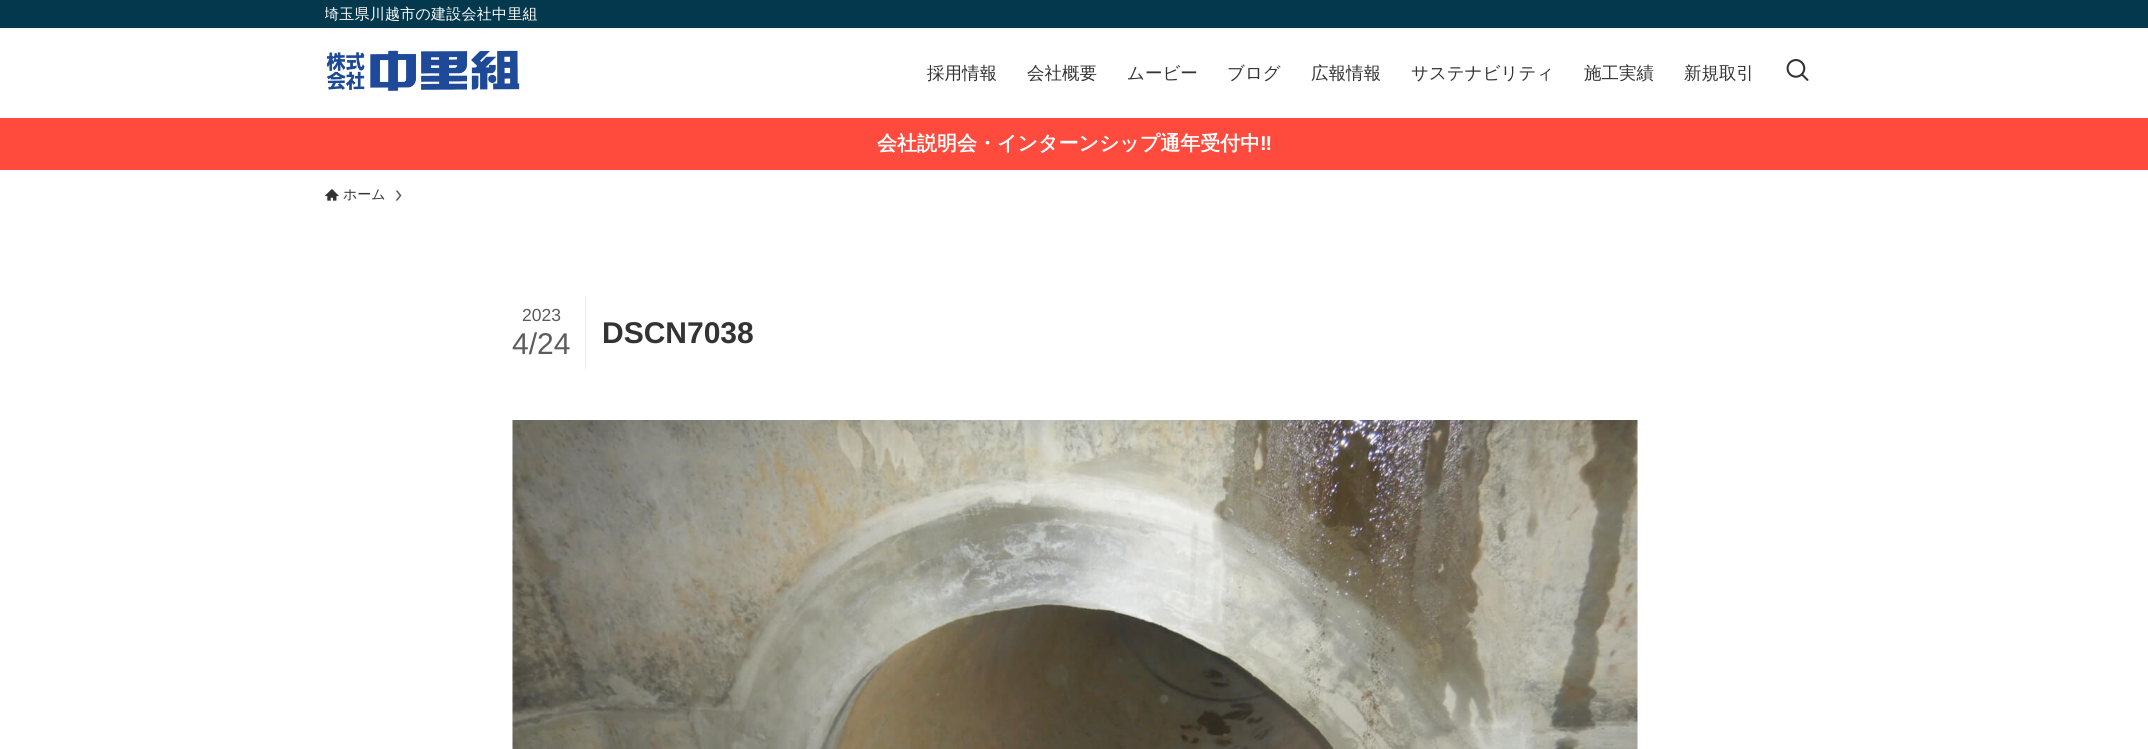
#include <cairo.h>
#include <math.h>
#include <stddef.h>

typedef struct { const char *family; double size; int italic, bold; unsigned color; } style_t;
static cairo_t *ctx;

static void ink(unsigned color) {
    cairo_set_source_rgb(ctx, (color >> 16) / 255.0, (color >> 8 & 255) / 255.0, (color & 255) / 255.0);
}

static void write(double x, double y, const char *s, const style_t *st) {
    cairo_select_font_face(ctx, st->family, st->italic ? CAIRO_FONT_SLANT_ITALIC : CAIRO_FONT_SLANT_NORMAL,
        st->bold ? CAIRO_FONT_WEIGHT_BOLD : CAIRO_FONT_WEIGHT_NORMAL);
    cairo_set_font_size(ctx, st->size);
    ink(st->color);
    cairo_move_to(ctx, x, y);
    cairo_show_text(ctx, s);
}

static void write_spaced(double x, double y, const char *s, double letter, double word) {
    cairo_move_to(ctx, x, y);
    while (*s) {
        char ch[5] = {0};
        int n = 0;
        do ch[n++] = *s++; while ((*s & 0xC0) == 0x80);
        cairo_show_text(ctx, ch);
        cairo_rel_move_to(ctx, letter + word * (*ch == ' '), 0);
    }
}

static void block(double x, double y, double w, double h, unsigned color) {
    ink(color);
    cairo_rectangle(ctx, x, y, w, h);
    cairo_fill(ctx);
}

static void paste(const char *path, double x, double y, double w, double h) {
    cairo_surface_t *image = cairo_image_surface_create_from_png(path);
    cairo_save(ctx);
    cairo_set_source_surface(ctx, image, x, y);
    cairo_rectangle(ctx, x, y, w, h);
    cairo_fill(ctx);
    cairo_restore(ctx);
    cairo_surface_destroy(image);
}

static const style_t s1 = {"WenQuanYi Zen Hei Medium", 17.5, 0, 0, 0x333333};
static const style_t s2 = {"WenQuanYi Zen Hei", 20, 0, 1, 0xffffff};
static const style_t s3 = {"Liberation Sans", 20, 0, 1, 0xffffff};
static const style_t s4 = {"WenQuanYi Zen Hei Medium", 14, 0, 0, 0x333333};
static const style_t s5 = {"Liberation Sans", 17.5, 0, 0, 0x5c5c5c};
static const style_t s6 = {"Liberation Sans", 30, 0, 0, 0x5c5c5c};
static const style_t s7 = {"Liberation Sans", 30, 0, 1, 0x333333};

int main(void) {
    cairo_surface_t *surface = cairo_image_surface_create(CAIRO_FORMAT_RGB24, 2148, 749);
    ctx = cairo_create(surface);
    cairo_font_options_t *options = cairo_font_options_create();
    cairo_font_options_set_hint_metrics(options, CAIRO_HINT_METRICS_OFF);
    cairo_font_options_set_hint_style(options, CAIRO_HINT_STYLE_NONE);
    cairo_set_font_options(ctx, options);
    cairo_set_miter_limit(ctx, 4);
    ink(0xffffff);
    cairo_paint(ctx);
    block(0, 0, 2148, 28, 0x04384c);
    cairo_save(ctx);
    cairo_rectangle(ctx, 325, 0, 750, 28);
    cairo_clip(ctx);
    cairo_select_font_face(ctx, "WenQuanYi Zen Hei Medium", CAIRO_FONT_SLANT_NORMAL, CAIRO_FONT_WEIGHT_NORMAL);
    cairo_set_font_size(ctx, 15);
    ink(0xffffff);
    write_spaced(324, 19, "埼玉県川越市の建設会社中里組", 0.25, 0);
    cairo_restore(ctx);
    paste("pic1.png", 326, 50, 194, 41);
    write(927, 79, "採用情報", &s1);
    write(1027, 79, "会社概要", &s1);
    write(1127, 79, "ムービー", &s1);
    write(1227, 79, "ブログ", &s1);
    write(1311, 79, "広報情報", &s1);
    write(1411, 79, "サステナビリティ", &s1);
    write(1584, 79, "施工実績", &s1);
    write(1684, 79, "新規取引", &s1);
    paste("pic2.png", 1786, 59, 23, 22);
    block(0, 118, 2148, 52, 0xff4b3d);
    write(877, 150, "会社説明会・インターンシップ通年受付中", &s2);
    write(1260, 150, "‼", &s3);
    paste("pic3.png", 325, 189, 14, 12);
    write(343, 199, "ホーム", &s4);
    ink(0x5c5c5c);
    cairo_new_path(ctx);
    cairo_move_to(ctx, 397.5, 190.5);
    cairo_line_to(ctx, 395.5, 190.5);
    cairo_line_to(ctx, 399.5, 195.5);
    cairo_line_to(ctx, 395.5, 200.5);
    cairo_line_to(ctx, 397.5, 200.5);
    cairo_line_to(ctx, 401.5, 195.5);
    cairo_close_path(ctx);
    cairo_fill(ctx);
    block(585, 296, 1, 73, 0xe9e9e9);
    write(522, 321, "2023", &s5);
    write(512, 354, "4/24", &s6);
    write(602, 343, "DSCN7038", &s7);
    paste("pic4.png", 512, 420, 1126, 329);
    cairo_surface_write_to_png(surface, "screenshot.png");
    cairo_font_options_destroy(options);
    cairo_destroy(ctx);
    cairo_surface_destroy(surface);
    return 0;
}
